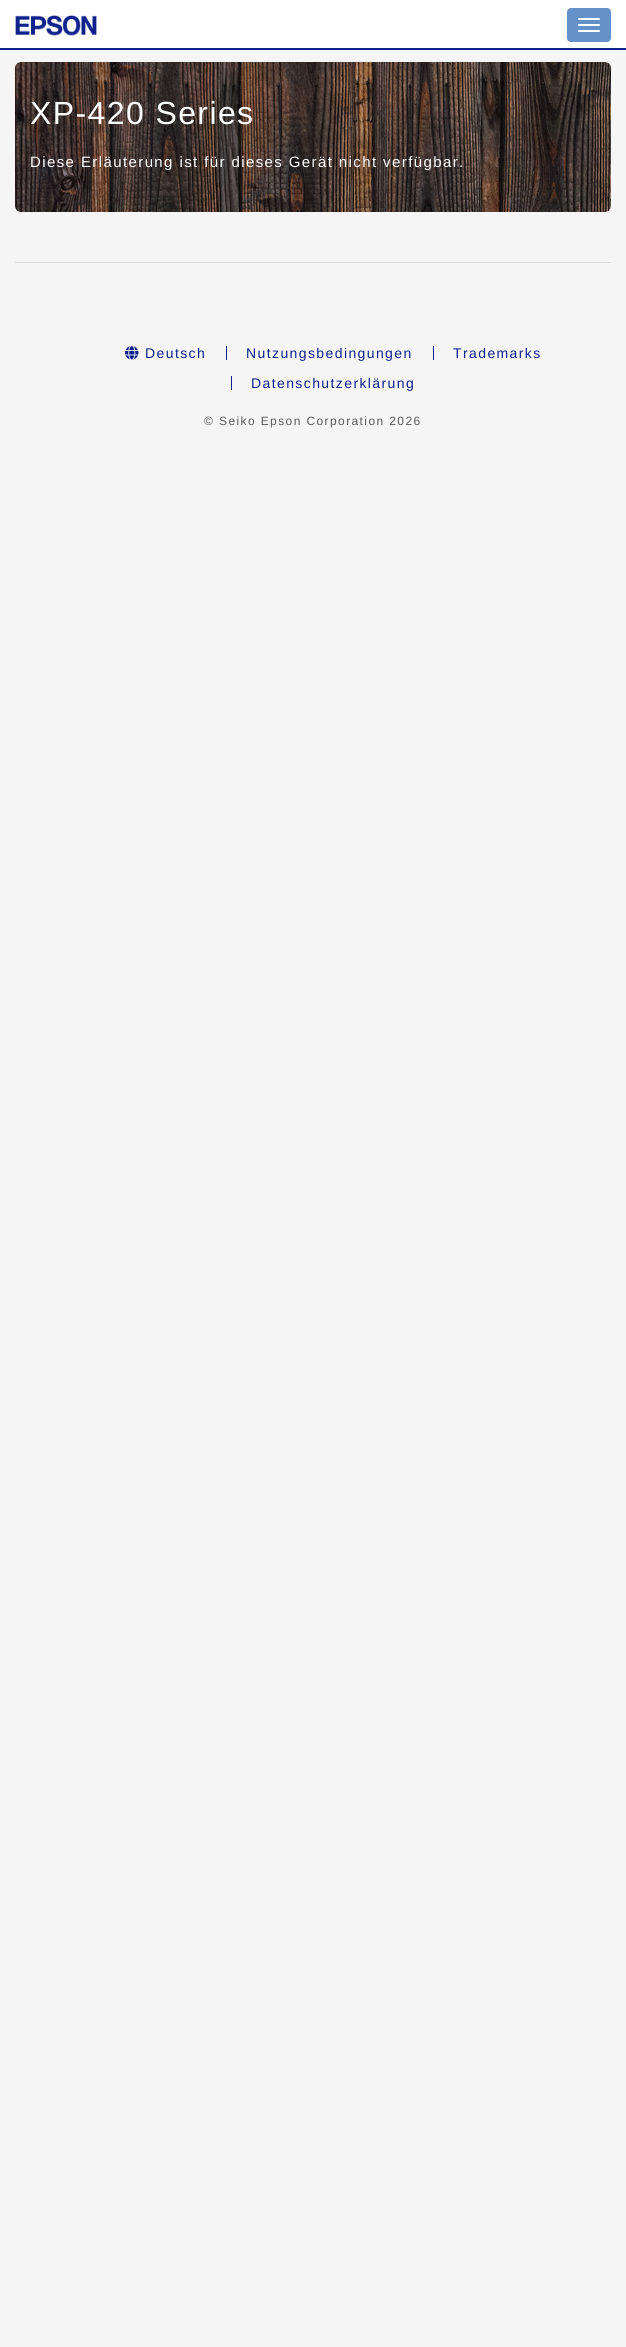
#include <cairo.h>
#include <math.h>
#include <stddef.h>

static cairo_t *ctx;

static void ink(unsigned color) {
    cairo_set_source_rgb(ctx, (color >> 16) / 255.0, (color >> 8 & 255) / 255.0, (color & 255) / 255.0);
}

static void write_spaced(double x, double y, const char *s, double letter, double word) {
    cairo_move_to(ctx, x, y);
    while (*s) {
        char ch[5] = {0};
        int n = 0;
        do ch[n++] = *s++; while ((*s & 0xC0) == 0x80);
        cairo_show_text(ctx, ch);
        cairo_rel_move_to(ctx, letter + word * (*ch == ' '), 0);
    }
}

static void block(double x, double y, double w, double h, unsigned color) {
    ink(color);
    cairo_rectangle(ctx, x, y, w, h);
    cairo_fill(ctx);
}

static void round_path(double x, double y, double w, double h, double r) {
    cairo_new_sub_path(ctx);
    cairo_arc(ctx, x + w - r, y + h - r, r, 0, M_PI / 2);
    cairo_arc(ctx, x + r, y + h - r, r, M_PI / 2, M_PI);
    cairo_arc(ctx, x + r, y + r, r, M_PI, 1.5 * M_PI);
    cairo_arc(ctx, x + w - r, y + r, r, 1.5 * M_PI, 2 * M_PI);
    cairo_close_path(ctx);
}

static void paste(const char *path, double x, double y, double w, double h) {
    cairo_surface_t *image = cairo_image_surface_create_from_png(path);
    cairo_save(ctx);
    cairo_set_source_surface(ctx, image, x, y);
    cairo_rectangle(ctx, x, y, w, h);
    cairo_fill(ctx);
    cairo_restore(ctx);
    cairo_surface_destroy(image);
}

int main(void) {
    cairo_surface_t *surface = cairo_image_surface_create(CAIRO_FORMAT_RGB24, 626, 2347);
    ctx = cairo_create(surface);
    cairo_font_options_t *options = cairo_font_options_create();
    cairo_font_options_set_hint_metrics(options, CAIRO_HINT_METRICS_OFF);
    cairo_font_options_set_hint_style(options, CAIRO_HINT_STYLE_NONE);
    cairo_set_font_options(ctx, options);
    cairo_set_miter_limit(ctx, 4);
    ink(0xf5f5f5);
    cairo_paint(ctx);
    block(0, 0, 626, 48, 0xffffff);
    block(0, 48, 626, 2, 0x10218b);
    paste("pic1.png", 15, 15, 82, 21);
    ink(0x6491c7);
    round_path(567, 8, 44, 34, 4);
    cairo_fill(ctx);
    ink(0xffffff);
    round_path(578, 18, 22, 2, 1);
    cairo_fill(ctx);
    round_path(578, 24, 22, 2, 1);
    cairo_fill(ctx);
    round_path(578, 30, 22, 2, 1);
    cairo_fill(ctx);
    paste("pic2.png", 15, 62, 596, 150);
    cairo_select_font_face(ctx, "Liberation Sans", CAIRO_FONT_SLANT_NORMAL, CAIRO_FONT_WEIGHT_NORMAL);
    cairo_set_font_size(ctx, 32);
    write_spaced(30, 124, "XP-420 Series", 1.4, 0);
    cairo_set_font_size(ctx, 15);
    write_spaced(30, 167, "Diese Erläuterung ist für dieses Gerät nicht verfügbar.", 1.4, 0);
    block(15, 262, 596, 1, 0xdcdcdc);
    paste("pic3.png", 125, 346, 14, 14);
    cairo_set_font_size(ctx, 14);
    ink(0x10218b);
    write_spaced(145, 358, "Deutsch", 1.4, 0);
    block(226, 346, 1, 14, 0x10218b);
    write_spaced(246, 358, "Nutzungsbedingungen", 1.4, 0);
    block(433, 346, 1, 14, 0x10218b);
    write_spaced(453, 358, "Trademarks", 1.4, 0);
    block(231, 376, 1, 14, 0x10218b);
    write_spaced(251, 388, "Datenschutzerklärung", 1.4, 0);
    cairo_set_font_size(ctx, 12);
    ink(0x5a5a5a);
    write_spaced(204, 425, "© Seiko Epson Corporation 2026", 1.4, 0);
    cairo_surface_write_to_png(surface, "screenshot.png");
    cairo_font_options_destroy(options);
    cairo_destroy(ctx);
    cairo_surface_destroy(surface);
    return 0;
}
